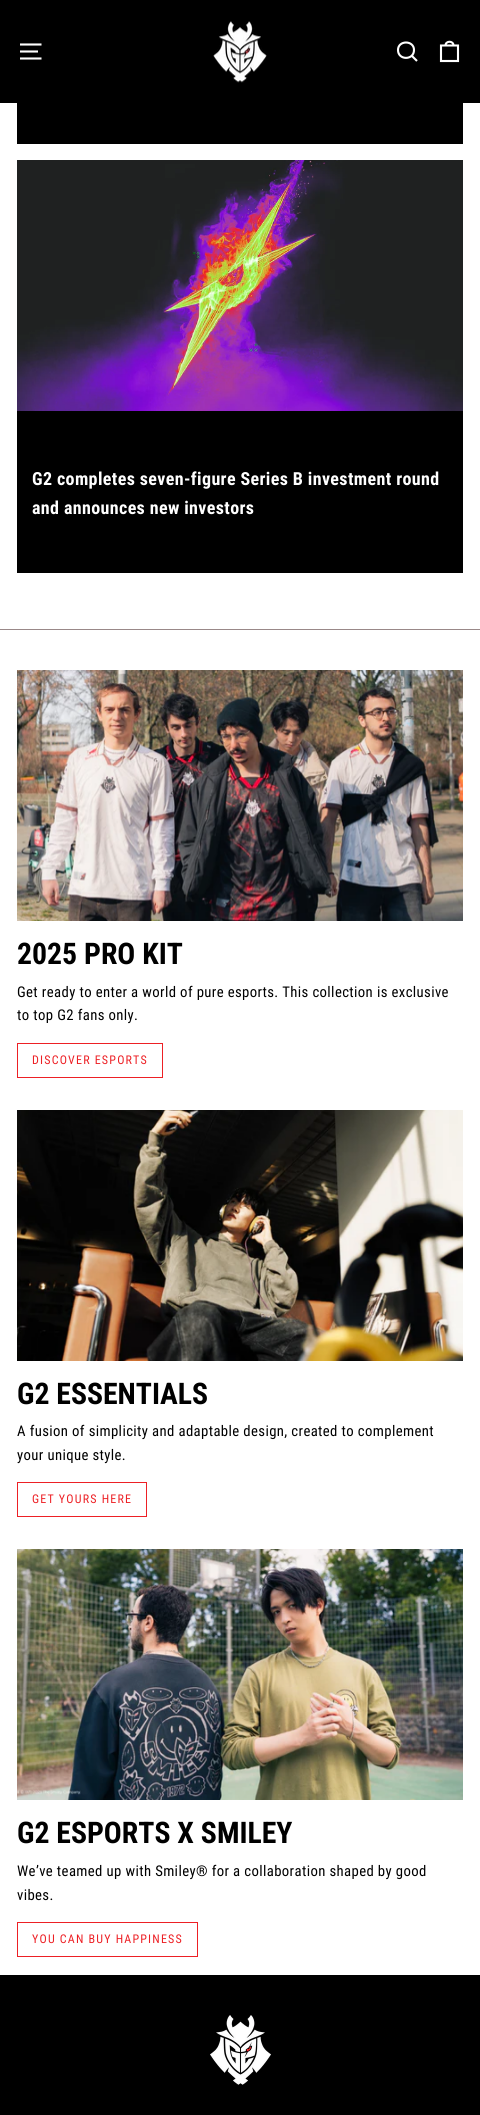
#include <cairo.h>
#include <math.h>
#include <stddef.h>

typedef struct { const char *family; double size; int italic, bold; unsigned color; } style_t;
static cairo_t *ctx;

static void ink(unsigned color) {
    cairo_set_source_rgb(ctx, (color >> 16) / 255.0, (color >> 8 & 255) / 255.0, (color & 255) / 255.0);
}

static void write(double x, double y, const char *s, const style_t *st) {
    cairo_select_font_face(ctx, st->family, st->italic ? CAIRO_FONT_SLANT_ITALIC : CAIRO_FONT_SLANT_NORMAL,
        st->bold ? CAIRO_FONT_WEIGHT_BOLD : CAIRO_FONT_WEIGHT_NORMAL);
    cairo_set_font_size(ctx, st->size);
    ink(st->color);
    cairo_move_to(ctx, x, y);
    cairo_show_text(ctx, s);
}

static void write_spaced(double x, double y, const char *s, double letter, double word) {
    cairo_move_to(ctx, x, y);
    while (*s) {
        char ch[5] = {0};
        int n = 0;
        do ch[n++] = *s++; while ((*s & 0xC0) == 0x80);
        cairo_show_text(ctx, ch);
        cairo_rel_move_to(ctx, letter + word * (*ch == ' '), 0);
    }
}

static void block(double x, double y, double w, double h, unsigned color) {
    ink(color);
    cairo_rectangle(ctx, x, y, w, h);
    cairo_fill(ctx);
}

static void paste(const char *path, double x, double y, double w, double h) {
    cairo_surface_t *image = cairo_image_surface_create_from_png(path);
    cairo_save(ctx);
    cairo_set_source_surface(ctx, image, x, y);
    cairo_rectangle(ctx, x, y, w, h);
    cairo_fill(ctx);
    cairo_restore(ctx);
    cairo_surface_destroy(image);
}

static const style_t s1 = {"Roboto Condensed", 29.75, 0, 1, 0x000000};

int main(void) {
    cairo_surface_t *surface = cairo_image_surface_create(CAIRO_FORMAT_RGB24, 480, 2115);
    ctx = cairo_create(surface);
    cairo_font_options_t *options = cairo_font_options_create();
    cairo_font_options_set_hint_metrics(options, CAIRO_HINT_METRICS_OFF);
    cairo_font_options_set_hint_style(options, CAIRO_HINT_STYLE_NONE);
    cairo_set_font_options(ctx, options);
    cairo_set_miter_limit(ctx, 4);
    ink(0xffffff);
    cairo_paint(ctx);
    block(0, 0, 480, 103, 0x000000);
    cairo_new_path(ctx);
    cairo_move_to(ctx, 20, 44.5);
    cairo_line_to(ctx, 41.5, 44.5);
    cairo_move_to(ctx, 20, 51.5);
    cairo_line_to(ctx, 38, 51.5);
    cairo_move_to(ctx, 20, 58.5);
    cairo_line_to(ctx, 41.5, 58.5);
    ink(0xffffff);
    cairo_set_line_width(ctx, 2.1);
    cairo_stroke(ctx);
    paste("pic1.png", 213, 21, 54, 62);
    cairo_new_path(ctx);
    cairo_move_to(ctx, 414, 50);
    cairo_curve_to(ctx, 414, 60.5, 398, 60.5, 398, 50);
    cairo_curve_to(ctx, 398, 40, 414, 40, 414, 50);
    cairo_close_path(ctx);
    cairo_move_to(ctx, 417, 61);
    cairo_line_to(ctx, 411.5, 55.5);
    cairo_stroke(ctx);
    cairo_new_path(ctx);
    cairo_move_to(ctx, 441, 45.5);
    cairo_line_to(ctx, 458, 45.5);
    cairo_line_to(ctx, 458, 61);
    cairo_line_to(ctx, 441, 61);
    cairo_close_path(ctx);
    cairo_move_to(ctx, 445.5, 45.5);
    cairo_curve_to(ctx, 445.5, 40.5, 453.5, 40.5, 453.5, 45.5);
    cairo_stroke(ctx);
    block(17, 103, 446, 41, 0x000000);
    block(17, 411, 446, 162, 0x000000);
    paste("pic2.png", 17, 160, 446, 251);
    cairo_select_font_face(ctx, "Roboto Condensed", CAIRO_FONT_SLANT_NORMAL, CAIRO_FONT_WEIGHT_BOLD);
    cairo_set_font_size(ctx, 18);
    ink(0xffffff);
    write_spaced(32, 485, "G2 completes seven-figure Series B investment round", 0.37, 0);
    write_spaced(32, 514, "and announces new investors", 0.37, 0);
    block(0, 629, 480, 1, 0x998888);
    paste("pic3.png", 17, 670, 446, 251);
    write(17, 964, "2025 PRO KIT", &s1);
    cairo_select_font_face(ctx, "Roboto Condensed", CAIRO_FONT_SLANT_NORMAL, CAIRO_FONT_WEIGHT_NORMAL);
    cairo_set_font_size(ctx, 14.75);
    write_spaced(17, 997, "Get ready to enter a world of pure esports. This collection is exclusive", 0.37, 0);
    write_spaced(17, 1020, "to top G2 fans only.", 0.37, 0);
    cairo_rectangle(ctx, 17.5, 1043.5, 145, 34);
    ink(0xed2025);
    cairo_set_line_width(ctx, 1);
    cairo_stroke(ctx);
    cairo_set_font_size(ctx, 12);
    write_spaced(32, 1064, "DISCOVER ESPORTS", 1.2, 0);
    paste("pic4.png", 17, 1110, 446, 251);
    write(17, 1404, "G2 ESSENTIALS", &s1);
    cairo_select_font_face(ctx, "Roboto Condensed", CAIRO_FONT_SLANT_NORMAL, CAIRO_FONT_WEIGHT_NORMAL);
    cairo_set_font_size(ctx, 14.75);
    write_spaced(17, 1436, "A fusion of simplicity and adaptable design, created to complement", 0.37, 0);
    write_spaced(17, 1460, "your unique style.", 0.37, 0);
    cairo_rectangle(ctx, 17.5, 1482.5, 129, 34);
    ink(0xed2025);
    cairo_stroke(ctx);
    cairo_set_font_size(ctx, 12);
    write_spaced(32, 1503, "GET YOURS HERE", 1.2, 0);
    paste("pic5.png", 17, 1549, 446, 251);
    write(17, 1843, "G2 ESPORTS X SMILEY", &s1);
    cairo_select_font_face(ctx, "Roboto Condensed", CAIRO_FONT_SLANT_NORMAL, CAIRO_FONT_WEIGHT_NORMAL);
    cairo_set_font_size(ctx, 14.75);
    write_spaced(17, 1876, "We’ve teamed up with Smiley® for a collaboration shaped by good", 0.37, 0);
    write_spaced(17, 1900, "vibes.", 0.37, 0);
    cairo_rectangle(ctx, 17.5, 1922.5, 180, 34);
    ink(0xed2025);
    cairo_stroke(ctx);
    cairo_set_font_size(ctx, 12);
    write_spaced(32, 1943, "YOU CAN BUY HAPPINESS", 1.2, 0);
    block(0, 1975, 480, 140, 0x000000);
    paste("pic6.png", 210, 2015, 61, 70);
    cairo_surface_write_to_png(surface, "screenshot.png");
    cairo_font_options_destroy(options);
    cairo_destroy(ctx);
    cairo_surface_destroy(surface);
    return 0;
}
